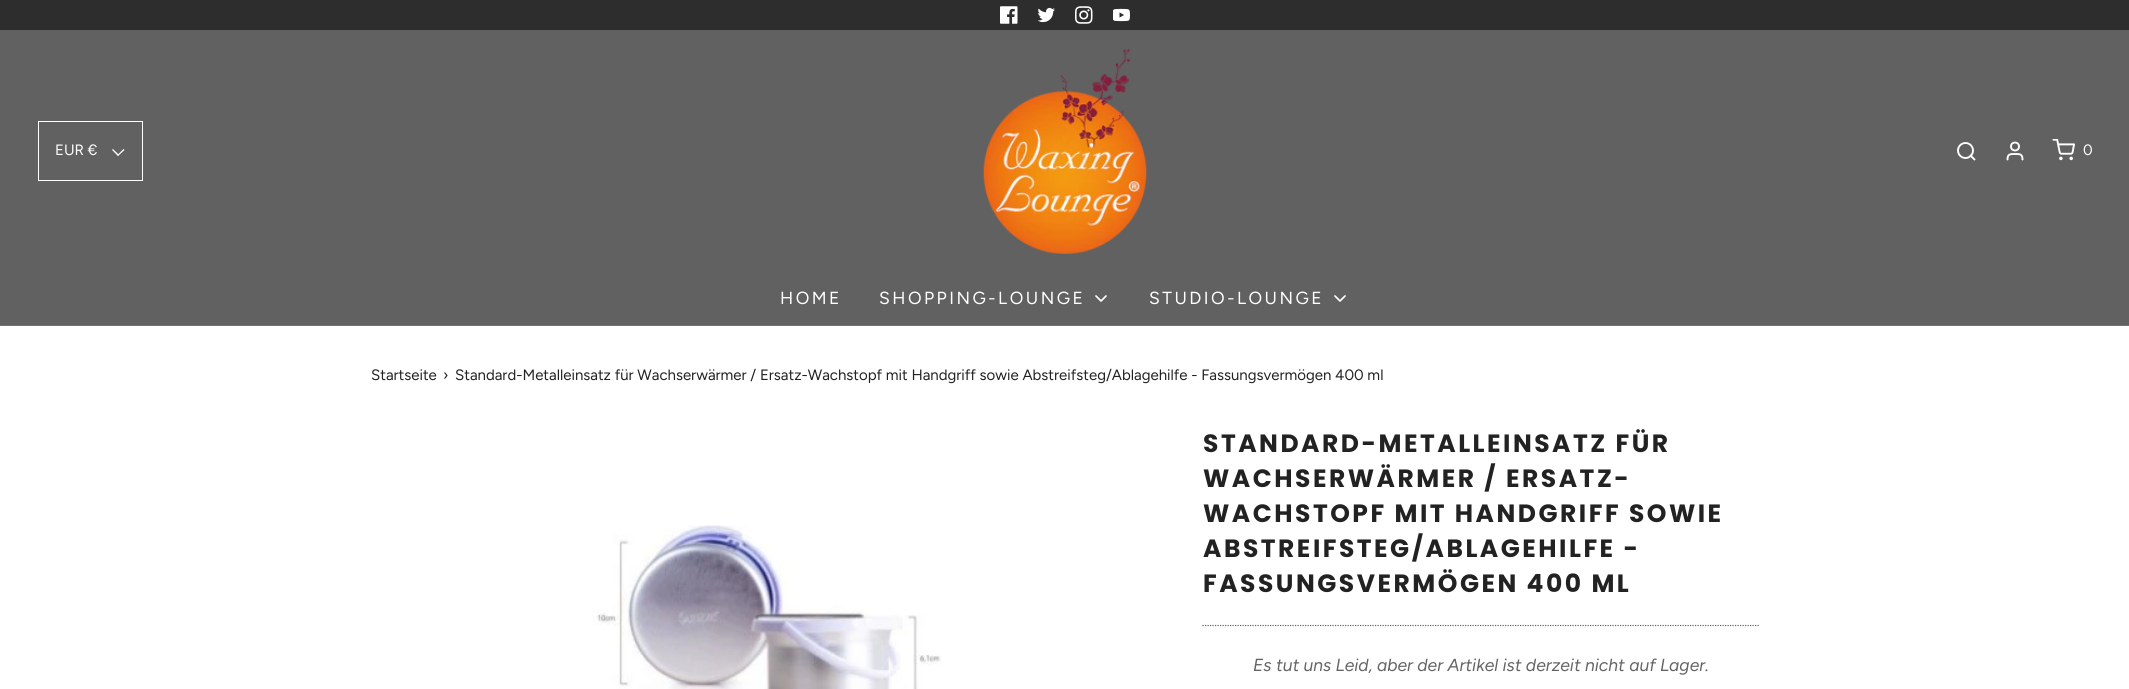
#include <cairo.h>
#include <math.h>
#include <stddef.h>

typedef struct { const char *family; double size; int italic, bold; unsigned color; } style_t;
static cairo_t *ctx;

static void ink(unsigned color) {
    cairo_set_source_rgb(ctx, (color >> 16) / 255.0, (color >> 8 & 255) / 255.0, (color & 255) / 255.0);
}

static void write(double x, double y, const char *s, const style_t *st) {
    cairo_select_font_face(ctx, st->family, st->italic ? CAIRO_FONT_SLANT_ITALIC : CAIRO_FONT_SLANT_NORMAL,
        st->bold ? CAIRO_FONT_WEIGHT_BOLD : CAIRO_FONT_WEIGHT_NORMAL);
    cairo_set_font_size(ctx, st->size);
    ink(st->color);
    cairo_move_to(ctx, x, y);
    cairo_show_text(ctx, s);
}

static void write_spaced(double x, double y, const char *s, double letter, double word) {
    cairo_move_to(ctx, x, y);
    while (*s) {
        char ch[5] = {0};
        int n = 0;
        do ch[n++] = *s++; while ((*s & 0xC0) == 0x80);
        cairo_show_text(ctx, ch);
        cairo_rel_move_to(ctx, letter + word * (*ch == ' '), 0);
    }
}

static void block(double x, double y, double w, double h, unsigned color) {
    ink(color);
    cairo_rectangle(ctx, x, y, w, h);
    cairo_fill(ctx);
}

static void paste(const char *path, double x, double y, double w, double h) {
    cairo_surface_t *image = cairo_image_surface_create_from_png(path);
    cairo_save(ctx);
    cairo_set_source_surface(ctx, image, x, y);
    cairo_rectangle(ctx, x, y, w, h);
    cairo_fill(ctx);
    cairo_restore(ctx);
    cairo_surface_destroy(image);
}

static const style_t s1 = {"Figtree", 15, 0, 0, 0xffffff};
static const style_t s2 = {"Figtree", 15, 0, 0, 0x222222};
static const style_t s3 = {"Figtree", 17.5, 1, 0, 0x646464};

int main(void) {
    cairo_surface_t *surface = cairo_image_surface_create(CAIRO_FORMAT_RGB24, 2129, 689);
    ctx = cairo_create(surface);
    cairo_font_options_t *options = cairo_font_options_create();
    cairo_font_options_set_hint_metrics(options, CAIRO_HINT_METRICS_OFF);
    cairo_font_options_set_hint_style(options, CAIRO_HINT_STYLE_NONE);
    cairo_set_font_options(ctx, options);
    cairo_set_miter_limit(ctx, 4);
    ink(0xffffff);
    cairo_paint(ctx);
    block(0, 0, 2129, 30, 0x2d2d2d);
    paste("pic1.png", 1000, 6, 18, 18);
    paste("pic2.png", 1038, 7, 17, 16);
    paste("pic3.png", 1075, 6, 18, 18);
    paste("pic4.png", 1113, 8, 17, 14);
    block(0, 30, 2129, 295, 0x616161);
    block(0, 325, 2129, 1, 0x717171);
    cairo_rectangle(ctx, 38.5, 121.5, 104, 59);
    ink(0xffffff);
    cairo_set_line_width(ctx, 1);
    cairo_stroke(ctx);
    write(55, 155, "EUR €", &s1);
    cairo_new_path(ctx);
    cairo_move_to(ctx, 123.5, 149);
    cairo_line_to(ctx, 124.5, 150);
    cairo_line_to(ctx, 118, 156);
    cairo_line_to(ctx, 117.5, 155);
    cairo_close_path(ctx);
    cairo_fill(ctx);
    cairo_new_path(ctx);
    cairo_move_to(ctx, 113, 149);
    cairo_line_to(ctx, 119, 155);
    cairo_line_to(ctx, 118, 156);
    cairo_line_to(ctx, 112, 150);
    cairo_close_path(ctx);
    cairo_fill(ctx);
    paste("pic5.png", 983, 48, 164, 206);
    cairo_arc(ctx, 2015, 146.5, 4, 0, 2 * M_PI);
    cairo_set_line_width(ctx, 1.9);
    cairo_stroke(ctx);
    cairo_arc(ctx, 1965.5, 150.5, 7.5, 0, 2 * M_PI);
    cairo_stroke(ctx);
    cairo_new_path(ctx);
    cairo_move_to(ctx, 1974.5, 159.5);
    cairo_line_to(ctx, 1970.5, 155.5);
    cairo_move_to(ctx, 2022.5, 159.5);
    cairo_curve_to(ctx, 2022.5, 154, 2020, 154, 2015, 154);
    cairo_curve_to(ctx, 2010, 154, 2007.5, 154, 2007.5, 159.5);
    cairo_set_line_cap(ctx, CAIRO_LINE_CAP_ROUND);
    cairo_set_line_join(ctx, CAIRO_LINE_JOIN_ROUND);
    cairo_stroke(ctx);
    paste("pic6.png", 2052, 139, 23, 22);
    write(2083, 155, "0", &s1);
    cairo_set_font_size(ctx, 17.5);
    write_spaced(780, 304, "HOME", 2.5, 0);
    write_spaced(879, 304, "SHOPPING-LOUNGE", 2.5, 0);
    cairo_new_path(ctx);
    cairo_move_to(ctx, 1096, 296);
    cairo_line_to(ctx, 1101, 301);
    cairo_line_to(ctx, 1106, 296);
    cairo_set_line_width(ctx, 1.7);
    cairo_stroke(ctx);
    write_spaced(1149, 304, "STUDIO-LOUNGE", 2.5, 0);
    cairo_new_path(ctx);
    cairo_move_to(ctx, 1335, 296);
    cairo_line_to(ctx, 1340, 301);
    cairo_line_to(ctx, 1345, 296);
    cairo_stroke(ctx);
    write(371, 380, "Startseite", &s2);
    write(443, 380, "›", &s2);
    write(455, 380, "Standard-Metalleinsatz für Wachserwärmer / Ersatz-Wachstopf mit Handgriff sowie Abstreifsteg/Ablagehilfe - Fassungsvermögen 400 ml", &s2);
    paste("pic7.png", 593, 525, 349, 164);
    cairo_select_font_face(ctx, "Poppins", CAIRO_FONT_SLANT_NORMAL, CAIRO_FONT_WEIGHT_BOLD);
    cairo_set_font_size(ctx, 25);
    write_spaced(1203, 452, "STANDARD-METALLEINSATZ FÜR", 2.5, 0);
    write_spaced(1203, 487, "WACHSERWÄRMER / ERSATZ-", 2.5, 0);
    write_spaced(1203, 522, "WACHSTOPF MIT HANDGRIFF SOWIE", 2.5, 0);
    write_spaced(1203, 557, "ABSTREIFSTEG/ABLAGEHILFE -", 2.5, 0);
    write_spaced(1203, 592, "FASSUNGSVERMÖGEN 400 ML", 2.5, 0);
    cairo_new_path(ctx);
    cairo_move_to(ctx, 1202.5, 625.5);
    cairo_line_to(ctx, 1759, 625.5);
    ink(0x646464);
    cairo_set_line_width(ctx, 1.2);
    cairo_set_line_cap(ctx, CAIRO_LINE_CAP_BUTT);
    cairo_set_line_join(ctx, CAIRO_LINE_JOIN_MITER);
    cairo_set_dash(ctx, (double[]){1.25, 1.25}, 2, 0);
    cairo_stroke(ctx);
    write(1253, 671, "Es tut uns Leid, aber der Artikel ist derzeit nicht auf Lager.", &s3);
    cairo_surface_write_to_png(surface, "screenshot.png");
    cairo_font_options_destroy(options);
    cairo_destroy(ctx);
    cairo_surface_destroy(surface);
    return 0;
}
